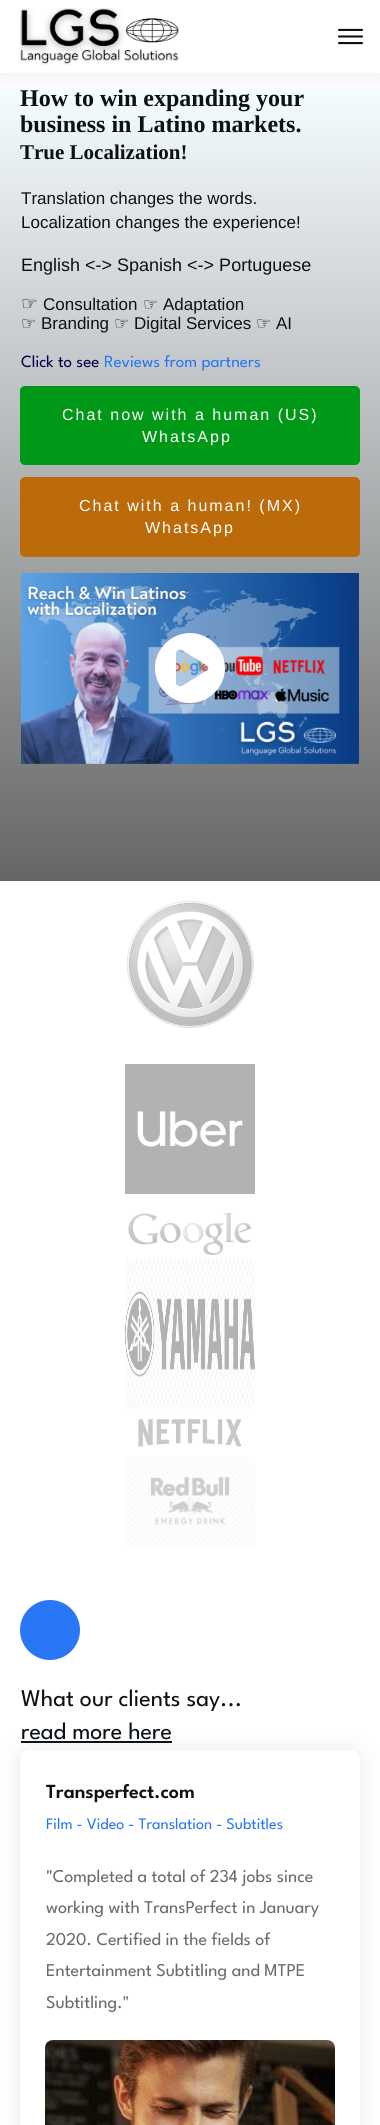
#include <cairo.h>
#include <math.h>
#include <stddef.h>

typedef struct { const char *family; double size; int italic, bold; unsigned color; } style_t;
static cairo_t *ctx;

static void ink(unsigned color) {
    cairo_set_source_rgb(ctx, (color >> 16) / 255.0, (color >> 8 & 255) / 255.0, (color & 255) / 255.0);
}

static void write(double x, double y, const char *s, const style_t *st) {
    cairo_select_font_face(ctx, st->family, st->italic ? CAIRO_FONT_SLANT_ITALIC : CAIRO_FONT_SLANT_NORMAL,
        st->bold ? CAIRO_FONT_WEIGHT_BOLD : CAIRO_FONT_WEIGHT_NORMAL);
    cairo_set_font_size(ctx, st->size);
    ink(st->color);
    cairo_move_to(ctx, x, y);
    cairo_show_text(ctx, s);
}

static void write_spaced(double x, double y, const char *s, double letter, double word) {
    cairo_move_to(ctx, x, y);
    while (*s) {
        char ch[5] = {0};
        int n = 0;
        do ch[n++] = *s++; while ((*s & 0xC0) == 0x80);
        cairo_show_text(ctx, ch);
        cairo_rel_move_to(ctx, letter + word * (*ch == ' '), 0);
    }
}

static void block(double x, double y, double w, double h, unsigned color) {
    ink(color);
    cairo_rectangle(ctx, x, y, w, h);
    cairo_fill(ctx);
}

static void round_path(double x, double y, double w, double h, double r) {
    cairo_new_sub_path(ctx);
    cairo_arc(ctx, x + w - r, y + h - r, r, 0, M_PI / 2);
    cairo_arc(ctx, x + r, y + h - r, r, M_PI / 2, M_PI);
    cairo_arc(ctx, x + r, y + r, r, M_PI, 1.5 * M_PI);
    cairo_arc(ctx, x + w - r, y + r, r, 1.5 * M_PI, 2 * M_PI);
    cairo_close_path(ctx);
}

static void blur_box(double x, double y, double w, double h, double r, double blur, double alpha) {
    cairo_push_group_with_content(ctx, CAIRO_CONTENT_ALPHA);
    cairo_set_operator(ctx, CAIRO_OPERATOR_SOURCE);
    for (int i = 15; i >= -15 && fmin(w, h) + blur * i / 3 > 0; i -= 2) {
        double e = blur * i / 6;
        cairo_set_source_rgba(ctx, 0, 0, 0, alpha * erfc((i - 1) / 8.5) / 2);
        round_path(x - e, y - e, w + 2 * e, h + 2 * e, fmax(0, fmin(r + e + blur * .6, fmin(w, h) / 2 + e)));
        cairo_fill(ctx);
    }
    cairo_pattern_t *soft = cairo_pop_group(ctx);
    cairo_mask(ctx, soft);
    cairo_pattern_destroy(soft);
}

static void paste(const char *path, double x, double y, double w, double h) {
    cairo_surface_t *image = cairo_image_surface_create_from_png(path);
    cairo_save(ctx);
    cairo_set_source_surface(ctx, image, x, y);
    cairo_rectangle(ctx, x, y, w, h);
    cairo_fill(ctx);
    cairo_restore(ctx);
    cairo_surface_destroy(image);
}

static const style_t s1 = {"Liberation Serif", 24, 0, 1, 0x0c1115};
static const style_t s2 = {"Liberation Serif", 21, 0, 1, 0x0c1115};
static const style_t s3 = {"Liberation Sans", 17, 0, 0, 0x0c1115};
static const style_t s4 = {"Liberation Sans", 18, 0, 0, 0x0c1115};
static const style_t s5 = {"DejaVu Sans", 19, 0, 0, 0x0c1115};
static const style_t s6 = {"DejaVu Sans", 17, 0, 0, 0x0c1115};
static const style_t s7 = {"League Spartan", 17, 0, 0, 0x0a024b};
static const style_t s8 = {"League Spartan", 17, 0, 0, 0x2977f5};
static const style_t s9 = {"League Spartan", 24, 0, 0, 0x0c1115};
static const style_t s10 = {"League Spartan SemiBold", 20, 0, 0, 0x0c1115};
static const style_t s11 = {"League Spartan", 16, 0, 0, 0x2977f5};
static const style_t s12 = {"League Spartan", 18, 0, 0, 0x6a6b6c};

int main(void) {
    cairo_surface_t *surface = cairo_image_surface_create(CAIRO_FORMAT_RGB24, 380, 2125);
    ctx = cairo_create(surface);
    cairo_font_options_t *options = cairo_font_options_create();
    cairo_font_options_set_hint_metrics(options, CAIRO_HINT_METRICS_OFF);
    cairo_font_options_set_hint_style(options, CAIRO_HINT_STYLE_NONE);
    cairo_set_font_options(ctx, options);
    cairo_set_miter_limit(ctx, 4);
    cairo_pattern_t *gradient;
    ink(0xffffff);
    cairo_paint(ctx);
    gradient = cairo_pattern_create_linear(190, 86, 190, 881);
    cairo_pattern_add_color_stop_rgba(gradient, 0, 0.965, 0.992, 1, 1);
    cairo_pattern_add_color_stop_rgba(gradient, 1, 0.4, 0.4, 0.4, 1);
    cairo_set_source(ctx, gradient);
    cairo_pattern_destroy(gradient);
    cairo_rectangle(ctx, 0, 86, 380, 795);
    cairo_fill(ctx);
    cairo_save(ctx);
    cairo_rectangle(ctx, 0, 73, 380, 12);
    cairo_clip(ctx);
    ink(0x000000);
    blur_box(0, 2, 380, 73, 0, 15, 0.08);
    cairo_restore(ctx);
    paste("pic1.png", 20, 8, 159, 57);
    paste("pic2.png", 338, 28, 25, 17);
    write(20, 106, "How to win expanding your", &s1);
    write(20, 132, "business in Latino markets.", &s1);
    write(20, 159, "True Localization!", &s2);
    write(21, 204, "Translation changes the words.", &s3);
    write(21, 228, "Localization changes the experience!", &s3);
    write(21, 271, "English <-> Spanish <-> Portuguese", &s4);
    write(21, 310, "☞", &s5);
    write(43, 310, "Consultation", &s3);
    write(143, 310, "☞", &s6);
    write(163, 310, "Adaptation", &s3);
    write(21, 329, "☞", &s6);
    write(41, 329, "Branding", &s3);
    write(114, 329, "☞", &s6);
    write(134, 329, "Digital Services", &s3);
    write(256, 329, "☞", &s6);
    write(276, 329, "AI", &s3);
    write(21, 367, "Click to see", &s7);
    write(104, 367, "Reviews from partners", &s8);
    ink(0x009817);
    round_path(20, 386, 340, 79, 5);
    cairo_fill(ctx);
    cairo_select_font_face(ctx, "Liberation Sans", CAIRO_FONT_SLANT_NORMAL, CAIRO_FONT_WEIGHT_NORMAL);
    cairo_set_font_size(ctx, 16);
    ink(0xffffff);
    write_spaced(62, 420, "Chat now with a human (US)", 2, 0);
    write_spaced(142, 442, "WhatsApp", 2, 0);
    ink(0xbc6b0b);
    round_path(20, 477, 340, 80, 5);
    cairo_fill(ctx);
    ink(0xffffff);
    write_spaced(79, 511, "Chat with a human! (MX)", 2, 0);
    write_spaced(145, 533, "WhatsApp", 2, 0);
    paste("pic3.png", 21, 573, 338, 191);
    cairo_new_path(ctx);
    cairo_move_to(ctx, 190, 633);
    cairo_curve_to(ctx, 171, 633, 155, 649, 155, 668);
    cairo_curve_to(ctx, 155, 687, 171, 703, 190, 703);
    cairo_curve_to(ctx, 209, 703, 225, 687, 225, 668);
    cairo_curve_to(ctx, 225, 649, 209, 633, 190, 633);
    cairo_close_path(ctx);
    cairo_move_to(ctx, 206, 671);
    cairo_line_to(ctx, 182, 686);
    cairo_curve_to(ctx, 179, 687, 176, 685, 176, 683);
    cairo_line_to(ctx, 176, 653);
    cairo_curve_to(ctx, 176, 651, 179, 649, 182, 650);
    cairo_line_to(ctx, 206, 665);
    cairo_curve_to(ctx, 209, 667, 209, 670, 206, 671);
    cairo_close_path(ctx);
    cairo_fill(ctx);
    paste("pic4.png", 126, 900, 128, 128);
    paste("pic5.png", 125, 1064, 130, 130);
    paste("pic6.png", 128, 1212, 124, 43);
    paste("pic7.png", 125, 1259, 130, 150);
    paste("pic8.png", 138, 1419, 104, 28);
    paste("pic9.png", 125, 1457, 130, 90);
    ink(0x2977f5);
    cairo_arc(ctx, 50, 1630, 30, 0, 2 * M_PI);
    cairo_fill(ctx);
    write(21, 1706, "What our clients say...", &s9);
    write(21, 1739, "read more here", &s9);
    block(21, 1741, 151, 2, 0x0c1115);
    ink(0x000000);
    blur_box(20, 1750, 340, 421, 10, 12, 0.09);
    ink(0xffffff);
    round_path(20, 1750, 340, 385, 10);
    cairo_fill(ctx);
    write(46, 1798, "Transperfect.com", &s10);
    write(46, 1829, "Film - Video - Translation - Subtitles", &s11);
    write(46, 1882, "\"Completed a total of 234 jobs since", &s12);
    write(46, 1913, "working with TransPerfect in January", &s12);
    write(46, 1945, "2020. Certified in the fields of", &s12);
    write(46, 1976, "Entertainment Subtitling and MTPE", &s12);
    write(46, 2008, "Subtitling.\"", &s12);
    paste("pic10.png", 45, 2040, 290, 85);
    cairo_surface_write_to_png(surface, "screenshot.png");
    cairo_font_options_destroy(options);
    cairo_destroy(ctx);
    cairo_surface_destroy(surface);
    return 0;
}
